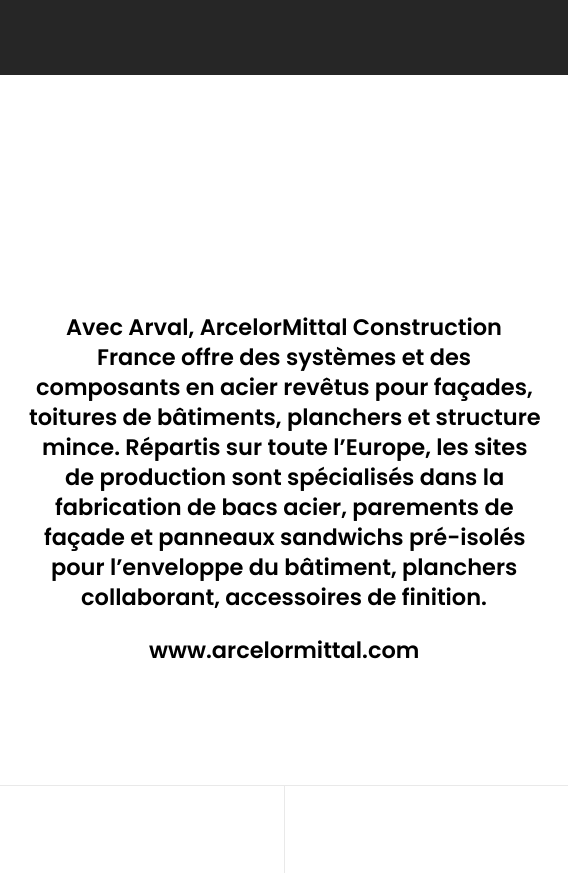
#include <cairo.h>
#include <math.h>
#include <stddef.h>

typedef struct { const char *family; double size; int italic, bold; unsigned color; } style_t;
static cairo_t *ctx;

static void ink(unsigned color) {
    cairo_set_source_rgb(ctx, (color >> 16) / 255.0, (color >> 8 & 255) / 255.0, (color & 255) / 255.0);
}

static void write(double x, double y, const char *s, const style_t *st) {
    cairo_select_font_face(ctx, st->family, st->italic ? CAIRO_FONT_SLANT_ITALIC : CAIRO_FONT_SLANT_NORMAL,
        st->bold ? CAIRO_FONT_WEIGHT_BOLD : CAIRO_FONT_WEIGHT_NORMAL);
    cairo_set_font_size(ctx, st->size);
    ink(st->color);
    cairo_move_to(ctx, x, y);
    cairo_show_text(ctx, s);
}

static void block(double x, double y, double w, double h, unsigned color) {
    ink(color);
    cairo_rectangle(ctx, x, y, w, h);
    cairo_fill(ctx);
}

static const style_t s1 = {"Poppins SemiBold", 22.5, 0, 0, 0x000000};

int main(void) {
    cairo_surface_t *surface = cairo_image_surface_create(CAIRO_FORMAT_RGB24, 568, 873);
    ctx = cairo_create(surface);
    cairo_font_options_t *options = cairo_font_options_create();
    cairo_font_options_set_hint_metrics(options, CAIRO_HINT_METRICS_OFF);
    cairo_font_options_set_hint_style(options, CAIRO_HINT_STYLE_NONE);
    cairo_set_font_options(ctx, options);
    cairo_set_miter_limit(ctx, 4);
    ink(0xffffff);
    cairo_paint(ctx);
    block(0, 0, 568, 75, 0x262626);
    write(66, 335, "Avec Arval, ArcelorMittal Construction", &s1);
    write(97, 365, "France offre des systèmes et des", &s1);
    write(36, 395, "composants en acier revêtus pour façades,", &s1);
    write(29, 425, "toitures de bâtiments, planchers et structure", &s1);
    write(42, 455, "mince. Répartis sur toute l’Europe, les sites", &s1);
    write(65, 485, "de production sont spécialisés dans la", &s1);
    write(55, 515, "fabrication de bacs acier, parements de", &s1);
    write(44, 545, "façade et panneaux sandwichs pré-isolés", &s1);
    write(51, 575, "pour l’enveloppe du bâtiment, planchers", &s1);
    write(81, 605, "collaborant, accessoires de finition.", &s1);
    write(149, 658, "www.arcelormittal.com", &s1);
    block(0, 785, 568, 1, 0xe9e9e9);
    block(284, 786, 1, 87, 0xe9e9e9);
    cairo_surface_write_to_png(surface, "screenshot.png");
    cairo_font_options_destroy(options);
    cairo_destroy(ctx);
    cairo_surface_destroy(surface);
    return 0;
}
